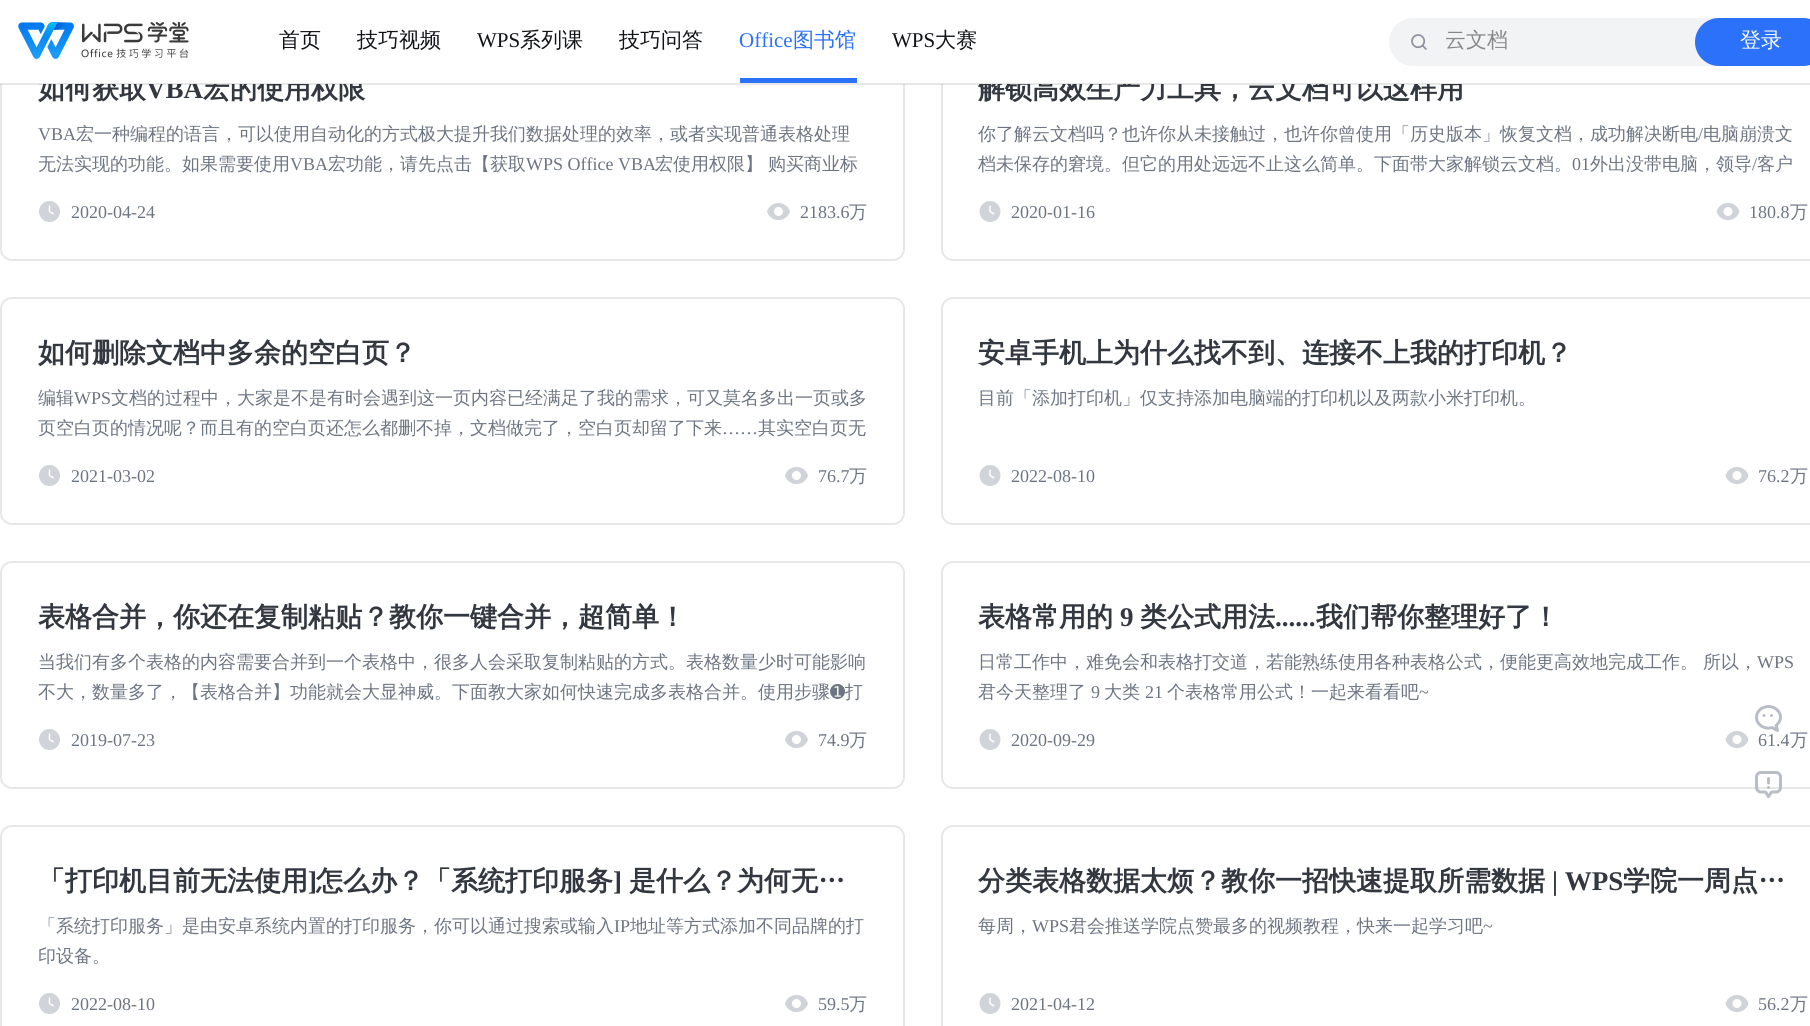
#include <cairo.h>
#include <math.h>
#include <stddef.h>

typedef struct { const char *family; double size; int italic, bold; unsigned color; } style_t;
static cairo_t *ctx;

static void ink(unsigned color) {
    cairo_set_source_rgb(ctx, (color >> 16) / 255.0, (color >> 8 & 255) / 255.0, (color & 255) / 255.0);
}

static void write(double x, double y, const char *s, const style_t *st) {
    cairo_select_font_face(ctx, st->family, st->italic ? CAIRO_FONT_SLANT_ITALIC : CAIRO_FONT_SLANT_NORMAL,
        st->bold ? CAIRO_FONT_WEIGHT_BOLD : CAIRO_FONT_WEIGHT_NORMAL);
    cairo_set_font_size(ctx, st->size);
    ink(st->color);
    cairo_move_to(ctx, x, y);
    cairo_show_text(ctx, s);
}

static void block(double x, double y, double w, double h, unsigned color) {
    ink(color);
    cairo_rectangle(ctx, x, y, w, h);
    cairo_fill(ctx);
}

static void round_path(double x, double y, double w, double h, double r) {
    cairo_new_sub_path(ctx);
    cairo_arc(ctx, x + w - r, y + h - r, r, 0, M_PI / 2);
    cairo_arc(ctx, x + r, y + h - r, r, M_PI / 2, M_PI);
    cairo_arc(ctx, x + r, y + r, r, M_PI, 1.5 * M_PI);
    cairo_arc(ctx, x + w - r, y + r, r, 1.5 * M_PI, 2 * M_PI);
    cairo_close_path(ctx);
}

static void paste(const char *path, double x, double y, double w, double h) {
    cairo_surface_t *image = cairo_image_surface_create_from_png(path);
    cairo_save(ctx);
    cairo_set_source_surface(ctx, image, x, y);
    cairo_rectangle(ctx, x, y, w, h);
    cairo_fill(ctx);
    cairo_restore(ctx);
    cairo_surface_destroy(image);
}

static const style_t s1 = {"WenQuanYi Zen Hei", 27, 0, 1, 0x333840};
static const style_t s2 = {"Liberation Serif", 27, 0, 1, 0x333840};
static const style_t s3 = {"WenQuanYi Zen Hei Medium", 21, 0, 0, 0x111317};
static const style_t s4 = {"Liberation Serif", 21, 0, 0, 0x111317};
static const style_t s5 = {"Liberation Serif", 21, 0, 0, 0x2c71fa};
static const style_t s6 = {"WenQuanYi Zen Hei Medium", 21, 0, 0, 0x2c71fa};
static const style_t s7 = {"WenQuanYi Zen Hei Medium", 21, 0, 0, 0x888888};
static const style_t s8 = {"WenQuanYi Zen Hei Medium", 21, 0, 0, 0xffffff};
static const style_t s9 = {"Liberation Serif", 18, 0, 0, 0x6d7582};
static const style_t s10 = {"WenQuanYi Zen Hei Medium", 18, 0, 0, 0x6d7582};
static const style_t s11 = {"DejaVu Sans", 18, 0, 0, 0x6d7582};

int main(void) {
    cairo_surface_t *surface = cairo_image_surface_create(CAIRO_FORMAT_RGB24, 1810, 1026);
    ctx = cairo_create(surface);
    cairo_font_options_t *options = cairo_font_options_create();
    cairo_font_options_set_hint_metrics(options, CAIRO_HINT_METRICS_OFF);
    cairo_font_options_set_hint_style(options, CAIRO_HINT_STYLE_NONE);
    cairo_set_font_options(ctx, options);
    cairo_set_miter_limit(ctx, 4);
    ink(0xffffff);
    cairo_paint(ctx);
    round_path(1, 34, 903, 226, 11);
    ink(0xe7e7e8);
    cairo_stroke(ctx);
    write(38, 98, "如何获取", &s1);
    write(146, 98, "VBA", &s2);
    write(203, 98, "宏的使用权限", &s1);
    round_path(942, 34, 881, 226, 11);
    ink(0xe7e7e8);
    cairo_stroke(ctx);
    write(978, 98, "解锁高效生产力工具，云文档可以这样用", &s1);
    block(0, 33, 1810, 51, 0xffffff);
    cairo_set_source_rgba(ctx, 0.067, 0.075, 0.09, 0.1);
    cairo_rectangle(ctx, 0, 83, 1810, 2);
    cairo_fill(ctx);
    paste("pic1.png", 18, 21, 171, 38);
    write(279, 47, "首页", &s3);
    write(357, 47, "技巧视频", &s3);
    write(477, 47, "WPS", &s4);
    write(520, 47, "系列课", &s3);
    write(619, 47, "技巧问答", &s3);
    write(739, 47, "Office", &s5);
    write(793, 47, "图书馆", &s6);
    block(740, 78, 117, 5, 0x2c71fa);
    write(892, 47, "WPS", &s4);
    write(935, 47, "大赛", &s3);
    ink(0xf2f3f5);
    round_path(1389, 18, 378, 48, 24);
    cairo_fill(ctx);
    paste("pic2.png", 1411, 34, 16, 16);
    write(1445, 47, "云文档", &s7);
    ink(0x2c71fa);
    round_path(1695, 18, 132, 48, 24);
    cairo_fill(ctx);
    write(1740, 47, "登录", &s8);
    write(38, 140, "VBA", &s9);
    write(76, 140, "宏一种编程的语言，可以使用自动化的方式极大提升我们数据处理的效率，或者实现普通表格处理", &s10);
    write(38, 170, "无法实现的功能。如果需要使用", &s10);
    write(290, 170, "VBA", &s9);
    write(328, 170, "宏功能，请先点击【获取", &s10);
    write(526, 170, "WPS Office VBA", &s9);
    write(655, 170, "宏使用权限】", &s10);
    write(768, 170, "购买商业标", &s10);
    paste("pic3.png", 39, 201, 21, 21);
    write(71, 218, "2020-04-24", &s9);
    paste("pic4.png", 767, 203, 23, 18);
    write(800, 218, "2183.6", &s9);
    write(849, 218, "万", &s10);
    write(978, 140, "你了解云文档吗？也许你从未接触过，也许你曾使用「历史版本」恢复文档，成功解决断电", &s10);
    write(1698, 140, "/", &s9);
    write(1703, 140, "电脑崩溃文", &s10);
    write(978, 170, "档未保存的窘境。但它的用处远远不止这么简单。下面带大家解锁云文档。", &s10);
    write(1572, 170, "01", &s9);
    write(1590, 170, "外出没带电脑，领导", &s10);
    write(1752, 170, "/", &s9);
    write(1757, 170, "客户", &s10);
    paste("pic5.png", 979, 201, 22, 21);
    write(1011, 218, "2020-01-16", &s9);
    paste("pic6.png", 1716, 203, 24, 18);
    write(1749, 218, "180.8", &s9);
    write(1790, 218, "万", &s10);
    round_path(1, 298, 903, 226, 11);
    ink(0xe7e7e8);
    cairo_stroke(ctx);
    write(38, 362, "如何删除文档中多余的空白页？", &s1);
    write(38, 404, "编辑", &s10);
    write(74, 404, "WPS", &s9);
    write(111, 404, "文档的过程中，大家是不是有时会遇到这一页内容已经满足了我的需求，可又莫名多出一页或多", &s10);
    write(38, 434, "页空白页的情况呢？而且有的空白页还怎么都删不掉，文档做完了，空白页却留了下来", &s10);
    write(722, 434, "……", &s9);
    write(758, 434, "其实空白页无", &s10);
    paste("pic3.png", 39, 465, 21, 21);
    write(71, 482, "2021-03-02", &s9);
    paste("pic4.png", 785, 467, 23, 18);
    write(818, 482, "76.7", &s9);
    write(849, 482, "万", &s10);
    round_path(942, 298, 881, 226, 11);
    ink(0xe7e7e8);
    cairo_stroke(ctx);
    write(978, 362, "安卓手机上为什么找不到、连接不上我的打印机？", &s1);
    write(978, 404, "目前「添加打印机」仅支持添加电脑端的打印机以及两款小米打印机。", &s10);
    paste("pic5.png", 979, 465, 22, 21);
    write(1011, 482, "2022-08-10", &s9);
    paste("pic6.png", 1725, 467, 24, 18);
    write(1758, 482, "76.2", &s9);
    write(1790, 482, "万", &s10);
    round_path(1, 562, 903, 226, 11);
    ink(0xe7e7e8);
    cairo_stroke(ctx);
    write(38, 626, "表格合并，你还在复制粘贴？教你一键合并，超简单！", &s1);
    write(38, 668, "当我们有多个表格的内容需要合并到一个表格中，很多人会采取复制粘贴的方式。表格数量少时可能影响", &s10);
    write(38, 698, "不大，数量多了，【表格合并】功能就会大显神威。下面教大家如何快速完成多表格合并。使用步骤", &s10);
    write(830, 698, "➊", &s11);
    write(845, 698, "打", &s10);
    paste("pic3.png", 39, 729, 21, 21);
    write(71, 746, "2019-07-23", &s9);
    paste("pic4.png", 785, 731, 23, 18);
    write(818, 746, "74.9", &s9);
    write(849, 746, "万", &s10);
    round_path(942, 562, 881, 226, 11);
    ink(0xe7e7e8);
    cairo_stroke(ctx);
    write(978, 626, "表格常用的", &s1);
    write(1120, 626, "9", &s2);
    write(1140, 626, "类公式用法", &s1);
    write(1275, 626, "......", &s2);
    write(1316, 626, "我们帮你整理好了！", &s1);
    write(978, 668, "日常工作中，难免会和表格打交道，若能熟练使用各种表格公式，便能更高效地完成工作。", &s10);
    write(1703, 668, "所以，", &s10);
    write(1757, 668, "WPS", &s9);
    write(978, 698, "君今天整理了", &s10);
    write(1091, 698, "9", &s9);
    write(1104, 698, "大类", &s10);
    write(1145, 698, "21", &s9);
    write(1167, 698, "个表格常用公式！一起来看看吧", &s10);
    write(1419, 698, "~", &s9);
    paste("pic5.png", 979, 729, 22, 21);
    write(1011, 746, "2020-09-29", &s9);
    paste("pic6.png", 1725, 731, 24, 18);
    write(1758, 746, "61.4", &s9);
    write(1790, 746, "万", &s10);
    round_path(1, 826, 903, 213, 11);
    ink(0xe7e7e8);
    cairo_stroke(ctx);
    write(38, 890, "「打印机目前无法使用", &s1);
    write(308, 890, "]", &s2);
    write(316, 890, "怎么办？「系统打印服务", &s1);
    write(613, 890, "]", &s2);
    write(629, 890, "是什么？为何无…", &s1);
    write(38, 932, "「系统打印服务」是由安卓系统内置的打印服务，你可以通过搜索或输入", &s10);
    write(614, 932, "IP", &s9);
    write(630, 932, "地址等方式添加不同品牌的打", &s10);
    write(38, 962, "印设备。", &s10);
    paste("pic3.png", 39, 993, 21, 21);
    write(71, 1010, "2022-08-10", &s9);
    paste("pic4.png", 785, 995, 23, 18);
    write(818, 1010, "59.5", &s9);
    write(849, 1010, "万", &s10);
    round_path(942, 826, 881, 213, 11);
    ink(0xe7e7e8);
    cairo_stroke(ctx);
    write(978, 890, "分类表格数据太烦？教你一招快速提取所需数据", &s1);
    write(1552, 890, "| WPS", &s2);
    write(1623, 890, "学院一周点…", &s1);
    write(978, 932, "每周，", &s10);
    write(1032, 932, "WPS", &s9);
    write(1069, 932, "君会推送学院点赞最多的视频教程，快来一起学习吧", &s10);
    write(1483, 932, "~", &s9);
    paste("pic5.png", 979, 993, 22, 21);
    write(1011, 1010, "2021-04-12", &s9);
    paste("pic6.png", 1725, 995, 24, 18);
    write(1758, 1010, "56.2", &s9);
    write(1790, 1010, "万", &s10);
    paste("pic7.png", 1755, 705, 27, 27);
    paste("pic8.png", 1755, 771, 27, 28);
    cairo_surface_write_to_png(surface, "screenshot.png");
    cairo_font_options_destroy(options);
    cairo_destroy(ctx);
    cairo_surface_destroy(surface);
    return 0;
}
